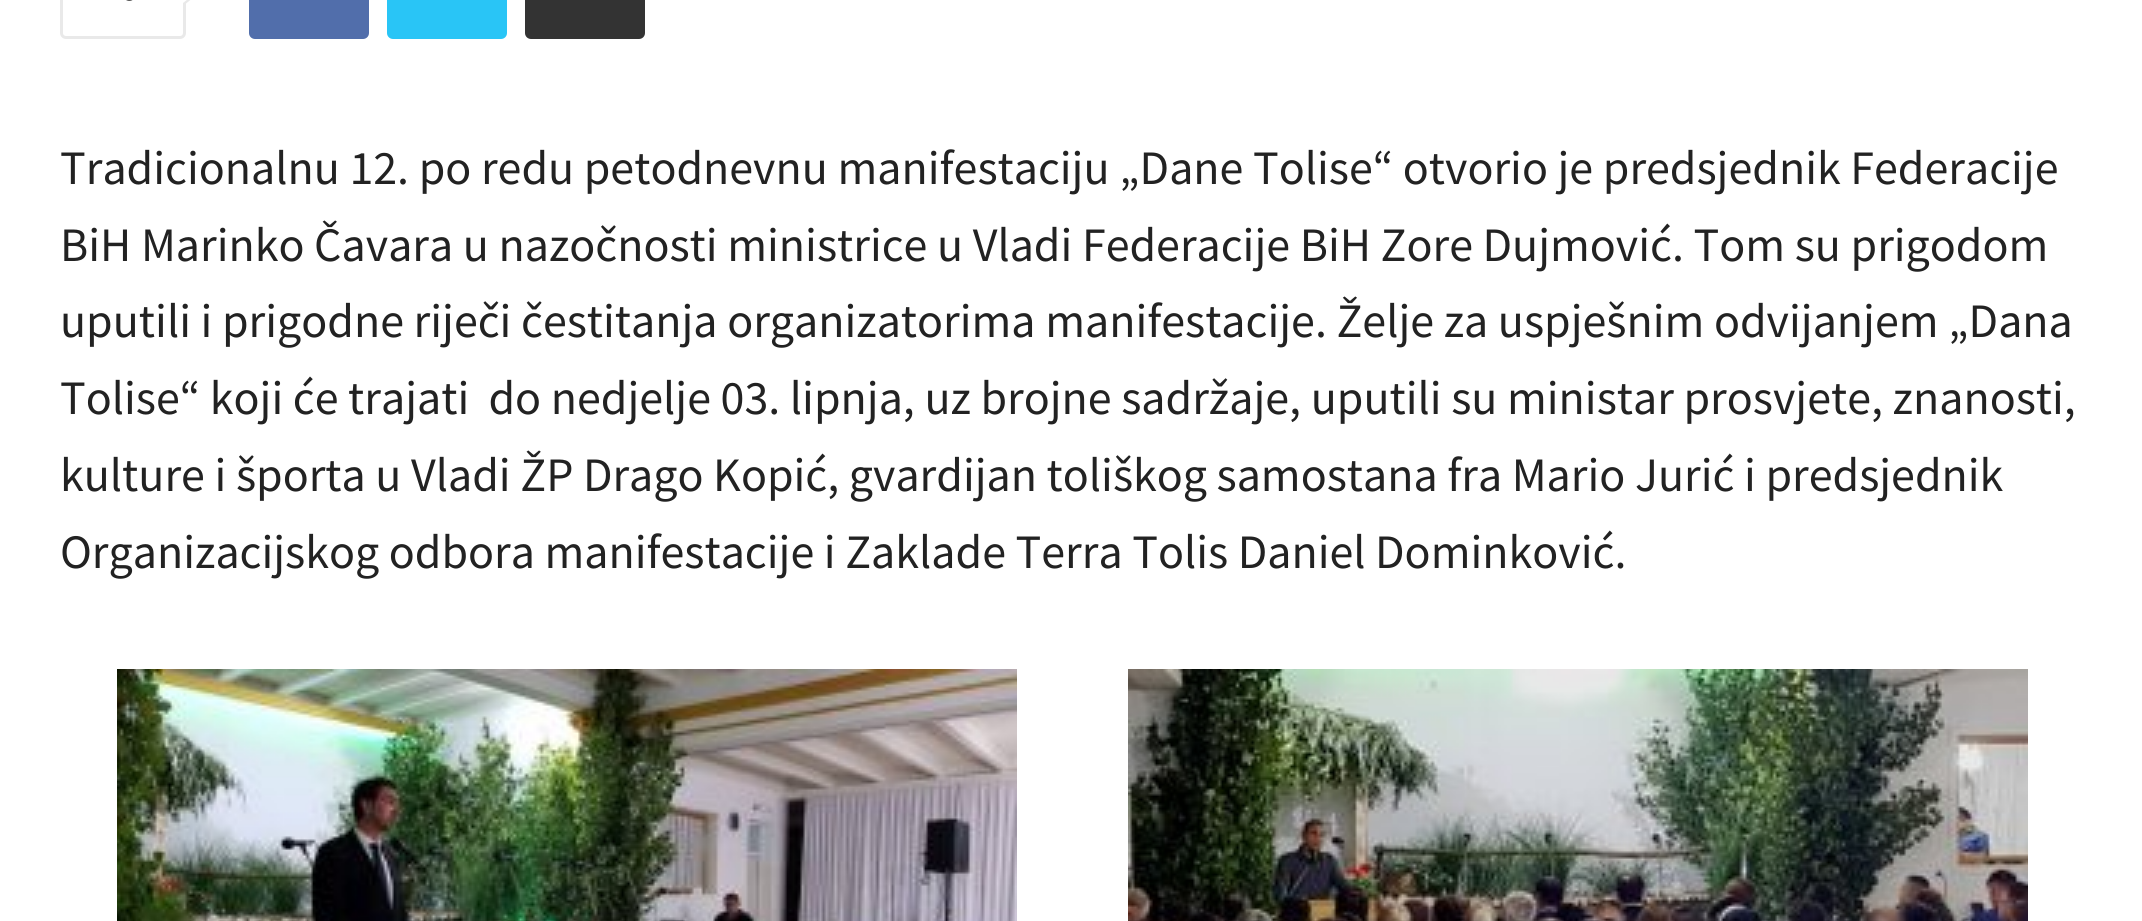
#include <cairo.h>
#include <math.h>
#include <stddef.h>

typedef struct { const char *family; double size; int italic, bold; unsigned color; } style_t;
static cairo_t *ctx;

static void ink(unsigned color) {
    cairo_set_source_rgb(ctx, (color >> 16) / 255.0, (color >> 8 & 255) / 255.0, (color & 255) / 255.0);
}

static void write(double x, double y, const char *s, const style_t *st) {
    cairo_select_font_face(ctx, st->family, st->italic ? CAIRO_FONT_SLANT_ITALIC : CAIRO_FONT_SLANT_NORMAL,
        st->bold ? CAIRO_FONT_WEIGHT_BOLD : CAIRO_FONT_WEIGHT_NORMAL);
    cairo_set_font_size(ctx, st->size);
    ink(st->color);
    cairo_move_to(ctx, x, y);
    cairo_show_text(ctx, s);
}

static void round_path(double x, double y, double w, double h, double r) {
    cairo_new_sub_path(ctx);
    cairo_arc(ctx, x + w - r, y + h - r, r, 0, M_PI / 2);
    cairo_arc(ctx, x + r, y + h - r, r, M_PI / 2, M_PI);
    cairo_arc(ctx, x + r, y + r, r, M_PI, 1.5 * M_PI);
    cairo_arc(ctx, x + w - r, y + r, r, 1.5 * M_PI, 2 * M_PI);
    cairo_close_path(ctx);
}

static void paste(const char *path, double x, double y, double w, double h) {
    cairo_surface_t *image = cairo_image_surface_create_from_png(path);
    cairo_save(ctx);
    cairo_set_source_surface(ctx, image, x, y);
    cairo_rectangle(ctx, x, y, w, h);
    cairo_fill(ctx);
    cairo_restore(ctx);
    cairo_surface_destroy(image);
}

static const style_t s1 = {"Source Sans Pro", 48, 0, 0, 0x222222};

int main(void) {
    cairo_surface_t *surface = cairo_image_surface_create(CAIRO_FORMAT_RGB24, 2142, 921);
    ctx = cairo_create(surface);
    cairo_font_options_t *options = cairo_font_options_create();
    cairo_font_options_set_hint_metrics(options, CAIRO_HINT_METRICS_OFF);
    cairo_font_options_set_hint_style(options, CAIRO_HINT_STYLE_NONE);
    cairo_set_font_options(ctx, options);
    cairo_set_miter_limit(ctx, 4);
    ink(0xffffff);
    cairo_paint(ctx);
    round_path(61.5, -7.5, 123, 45, 4.5);
    ink(0xe9e9e9);
    cairo_set_line_width(ctx, 3);
    cairo_stroke(ctx);
    paste("pic1.png", 126, 0, 7, 1);
    cairo_new_path(ctx);
    cairo_move_to(ctx, 183, 6);
    cairo_line_to(ctx, 183, -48);
    cairo_line_to(ctx, 216, -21);
    cairo_close_path(ctx);
    cairo_fill(ctx);
    ink(0xffffff);
    cairo_new_path(ctx);
    cairo_move_to(ctx, 183, 3);
    cairo_line_to(ctx, 183, -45);
    cairo_line_to(ctx, 213, -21);
    cairo_close_path(ctx);
    cairo_fill(ctx);
    ink(0x516eab);
    round_path(249, -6, 120, 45, 6);
    cairo_fill(ctx);
    ink(0x29c5f6);
    round_path(387, -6, 120, 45, 6);
    cairo_fill(ctx);
    ink(0x333333);
    round_path(525, -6, 120, 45, 6);
    cairo_fill(ctx);
    write(60, 184, "Tradicionalnu 12. po redu petodnevnu manifestaciju „Dane Tolise“ otvorio je predsjednik Federacije", &s1);
    write(60, 261, "BiH Marinko Čavara u nazočnosti ministrice u Vladi Federacije BiH Zore Dujmović. Tom su prigodom", &s1);
    write(60, 337, "uputili i prigodne riječi čestitanja organizatorima manifestacije. Želje za uspješnim odvijanjem „Dana", &s1);
    write(60, 414, "Tolise“ koji će trajati  do nedjelje 03. lipnja, uz brojne sadržaje, uputili su ministar prosvjete, znanosti,", &s1);
    write(60, 491, "kulture i športa u Vladi ŽP Drago Kopić, gvardijan toliškog samostana fra Mario Jurić i predsjednik", &s1);
    write(60, 568, "Organizacijskog odbora manifestacije i Zaklade Terra Tolis Daniel Dominković.", &s1);
    paste("pic2.png", 117, 669, 900, 252);
    paste("pic3.png", 1128, 669, 900, 252);
    cairo_surface_write_to_png(surface, "screenshot.png");
    cairo_font_options_destroy(options);
    cairo_destroy(ctx);
    cairo_surface_destroy(surface);
    return 0;
}
